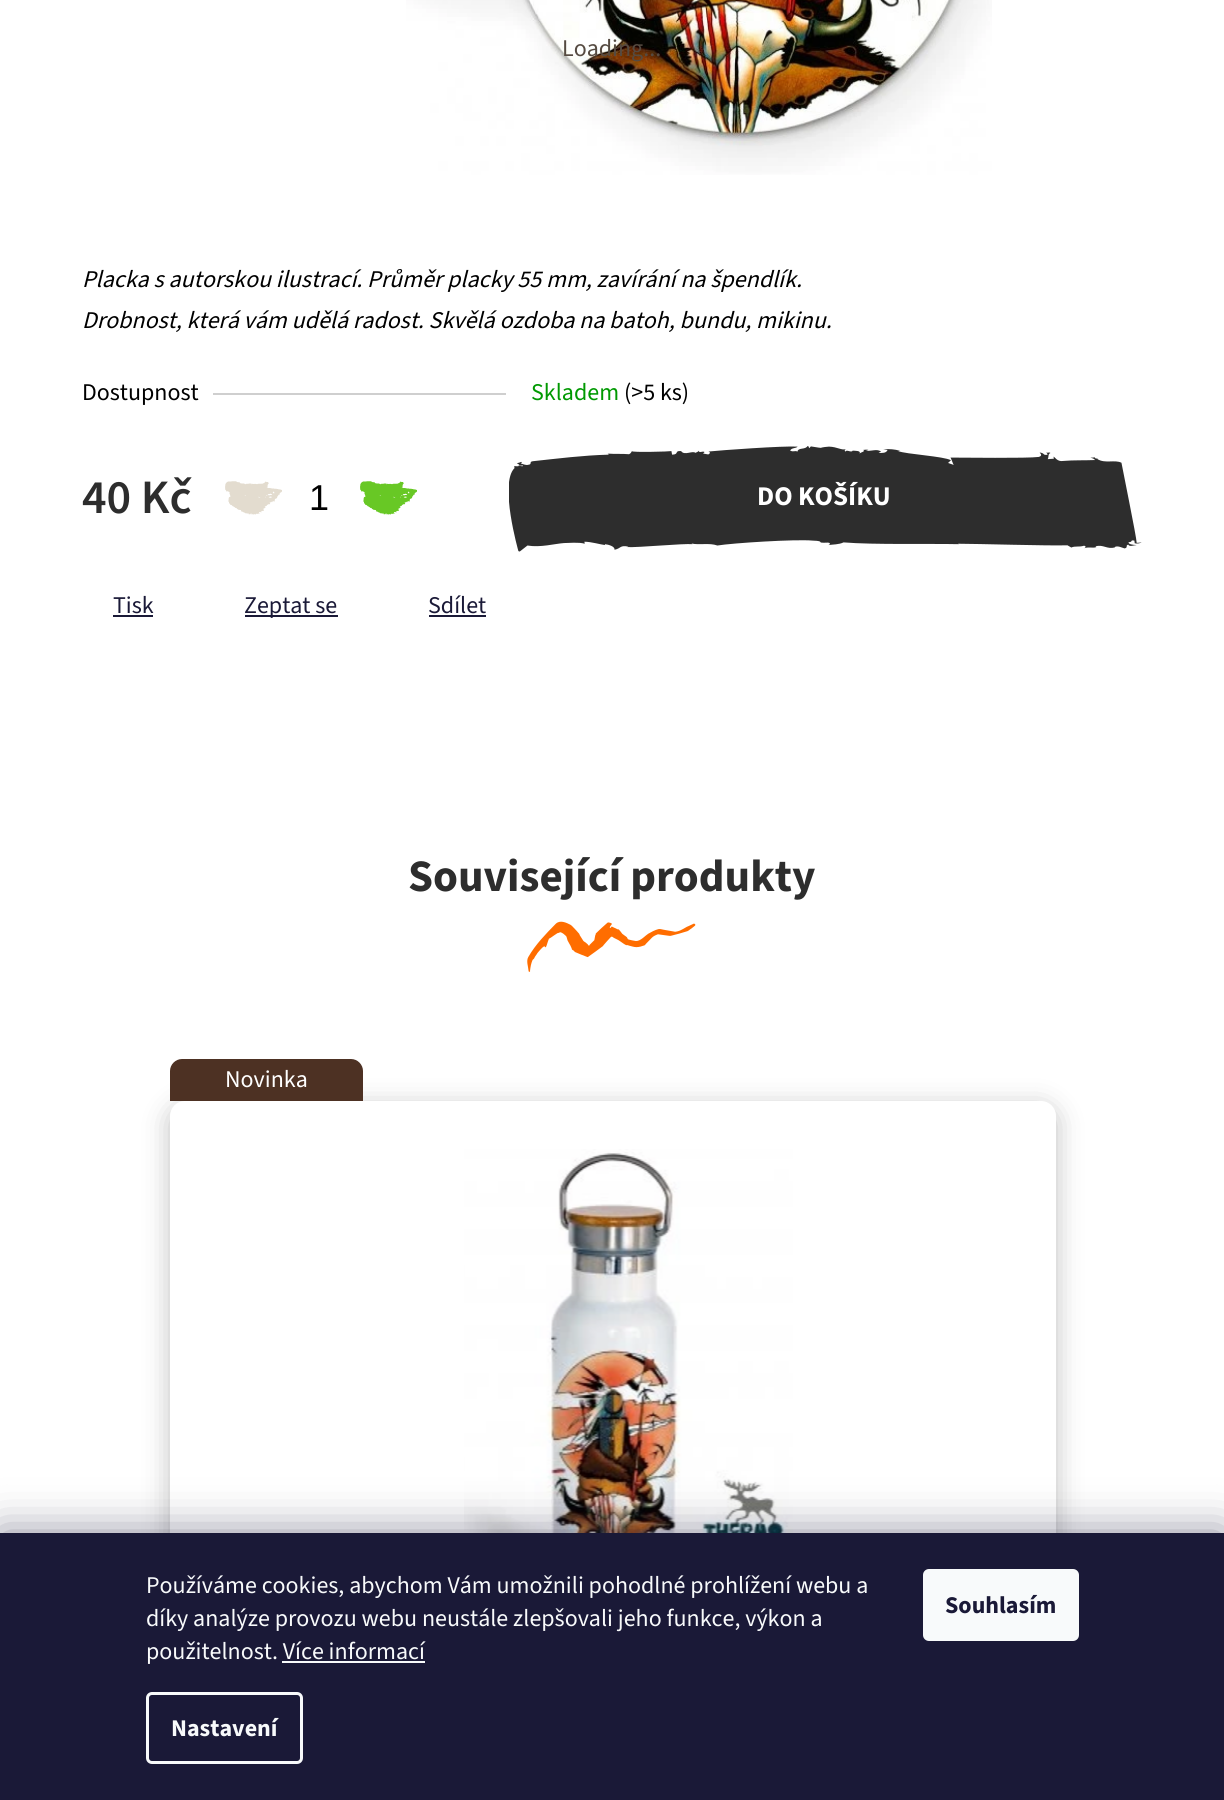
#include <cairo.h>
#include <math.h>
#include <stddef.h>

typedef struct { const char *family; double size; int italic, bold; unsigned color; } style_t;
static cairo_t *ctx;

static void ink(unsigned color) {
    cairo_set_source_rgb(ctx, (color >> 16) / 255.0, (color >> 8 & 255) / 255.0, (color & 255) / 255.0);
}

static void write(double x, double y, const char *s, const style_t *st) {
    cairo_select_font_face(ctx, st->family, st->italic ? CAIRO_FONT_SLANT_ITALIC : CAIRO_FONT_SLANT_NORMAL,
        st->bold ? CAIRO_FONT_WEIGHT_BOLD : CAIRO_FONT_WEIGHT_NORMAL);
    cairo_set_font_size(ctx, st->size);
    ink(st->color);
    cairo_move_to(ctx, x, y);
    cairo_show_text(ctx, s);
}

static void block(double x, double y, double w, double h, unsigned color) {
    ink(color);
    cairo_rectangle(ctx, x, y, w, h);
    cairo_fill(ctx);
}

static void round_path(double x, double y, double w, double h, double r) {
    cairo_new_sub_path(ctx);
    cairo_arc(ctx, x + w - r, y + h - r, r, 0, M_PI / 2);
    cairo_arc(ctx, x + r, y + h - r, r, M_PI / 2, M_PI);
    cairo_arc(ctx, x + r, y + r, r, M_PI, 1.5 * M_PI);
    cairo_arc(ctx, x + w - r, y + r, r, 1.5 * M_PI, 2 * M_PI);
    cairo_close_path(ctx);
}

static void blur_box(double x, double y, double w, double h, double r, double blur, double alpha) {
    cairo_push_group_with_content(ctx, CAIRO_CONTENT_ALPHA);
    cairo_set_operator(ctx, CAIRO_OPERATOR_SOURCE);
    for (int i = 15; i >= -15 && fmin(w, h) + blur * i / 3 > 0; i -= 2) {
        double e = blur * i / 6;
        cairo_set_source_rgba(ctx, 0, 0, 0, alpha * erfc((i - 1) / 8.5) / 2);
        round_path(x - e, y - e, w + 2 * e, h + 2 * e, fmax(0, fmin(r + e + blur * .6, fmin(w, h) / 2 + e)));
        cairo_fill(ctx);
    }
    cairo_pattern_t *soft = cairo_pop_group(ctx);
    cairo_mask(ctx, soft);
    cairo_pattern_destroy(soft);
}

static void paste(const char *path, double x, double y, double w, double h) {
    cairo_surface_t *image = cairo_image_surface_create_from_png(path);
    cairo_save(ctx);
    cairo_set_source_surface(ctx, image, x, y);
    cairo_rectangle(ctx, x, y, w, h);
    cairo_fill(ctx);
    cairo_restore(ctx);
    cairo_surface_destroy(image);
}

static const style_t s1 = {"Source Sans 3", 24, 0, 0, 0x554a41};
static const style_t s2 = {"Source Sans 3", 24, 1, 0, 0x000000};
static const style_t s3 = {"Source Sans 3", 24, 0, 0, 0x000000};
static const style_t s4 = {"Source Sans 3", 24, 0, 0, 0x009901};
static const style_t s5 = {"Source Sans 3 SemiBold", 48, 0, 0, 0x2d2d2d};
static const style_t s6 = {"Liberation Sans", 36, 0, 0, 0x000000};
static const style_t s7 = {"Source Sans 3", 27, 0, 1, 0xffffff};
static const style_t s8 = {"Source Sans 3", 24, 0, 0, 0x1a1937};
static const style_t s9 = {"Source Sans 3", 45, 0, 1, 0x2d2d2d};
static const style_t s10 = {"Source Sans 3", 24, 0, 0, 0xffffff};
static const style_t s11 = {"Source Sans 3", 24, 0, 0, 0xf8fafb};
static const style_t s12 = {"Source Sans 3", 24, 0, 1, 0xf8fafb};
static const style_t s13 = {"Source Sans 3", 24, 0, 1, 0x1a1937};

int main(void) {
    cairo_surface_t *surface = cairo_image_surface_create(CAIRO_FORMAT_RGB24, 1224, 1800);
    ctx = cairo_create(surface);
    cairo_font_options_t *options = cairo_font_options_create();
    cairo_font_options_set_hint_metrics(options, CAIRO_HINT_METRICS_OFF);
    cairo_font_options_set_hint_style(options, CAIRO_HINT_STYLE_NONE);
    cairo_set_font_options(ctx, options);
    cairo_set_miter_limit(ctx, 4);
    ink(0xffffff);
    cairo_paint(ctx);
    paste("pic1.png", 406, 0, 586, 175);
    write(562, 56, "Loading...", &s1);
    write(82, 287, "Placka s autorskou ilustrací. Průměr placky 55 mm, zavírání na špendlík.", &s2);
    write(82, 328, "Drobnost, která vám udělá radost. Skvělá ozdoba na batoh, bundu, mikinu.", &s2);
    write(82, 400, "Dostupnost", &s3);
    block(213, 393, 293, 2, 0xcfcfcf);
    write(531, 400, "Skladem", &s4);
    write(624, 400, "(>5 ks)", &s3);
    write(82, 513, "40 Kč", &s5);
    paste("pic2.png", 225, 481, 57, 34);
    write(309, 510, "1", &s6);
    paste("pic3.png", 360, 481, 57, 34);
    paste("pic4.png", 509, 446, 633, 106);
    write(757, 505, "DO KOŠÍKU", &s7);
    write(113, 613, "Tisk", &s8);
    block(113, 615, 40, 2, 0x1a1937);
    block(245, 615, 93, 2, 0x1a1937);
    write(244, 613, "Zeptat se", &s8);
    write(428, 613, "Sdílet", &s8);
    block(429, 615, 57, 2, 0x1a1937);
    write(408, 891, "Související produkty", &s9);
    paste("pic5.png", 527, 921, 169, 51);
    ink(0x000000);
    blur_box(170, 1107, 886, 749, 15, 13.5, 0.25);
    ink(0xffffff);
    round_path(170, 1101, 886, 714, 15);
    cairo_fill(ctx);
    ink(0x4d3123);
    cairo_new_path(ctx);
    cairo_move_to(ctx, 182, 1059);
    cairo_line_to(ctx, 351, 1059);
    cairo_curve_to(ctx, 357.5, 1059, 363, 1064.5, 363, 1071);
    cairo_line_to(ctx, 363, 1101);
    cairo_line_to(ctx, 170, 1101);
    cairo_line_to(ctx, 170, 1071);
    cairo_curve_to(ctx, 170, 1064.5, 175.5, 1059, 182, 1059);
    cairo_close_path(ctx);
    cairo_fill(ctx);
    write(225, 1087, "Novinka", &s10);
    paste("pic6.png", 464, 1149, 329, 384);
    ink(0x1b1939);
    blur_box(0, 1533, 1224, 267, 0, 22.5, 0.5);
    block(0, 1533, 1224, 267, 0x1a1937);
    write(146, 1593, "Používáme cookies, abychom Vám umožnili pohodlné prohlížení webu a", &s11);
    write(146, 1626, "díky analýze provozu webu neustále zlepšovali jeho funkce, výkon a", &s11);
    write(146, 1659, "použitelnost. Více informací", &s11);
    block(282, 1661, 143, 2, 0xf8fafb);
    round_path(147.5, 1693.5, 154, 69, 4.5);
    cairo_set_line_width(ctx, 3);
    cairo_stroke(ctx);
    write(171, 1736, "Nastavení", &s12);
    round_path(923, 1569, 156, 72, 6);
    cairo_fill(ctx);
    write(945, 1613, "Souhlasím", &s13);
    cairo_surface_write_to_png(surface, "screenshot.png");
    cairo_font_options_destroy(options);
    cairo_destroy(ctx);
    cairo_surface_destroy(surface);
    return 0;
}
